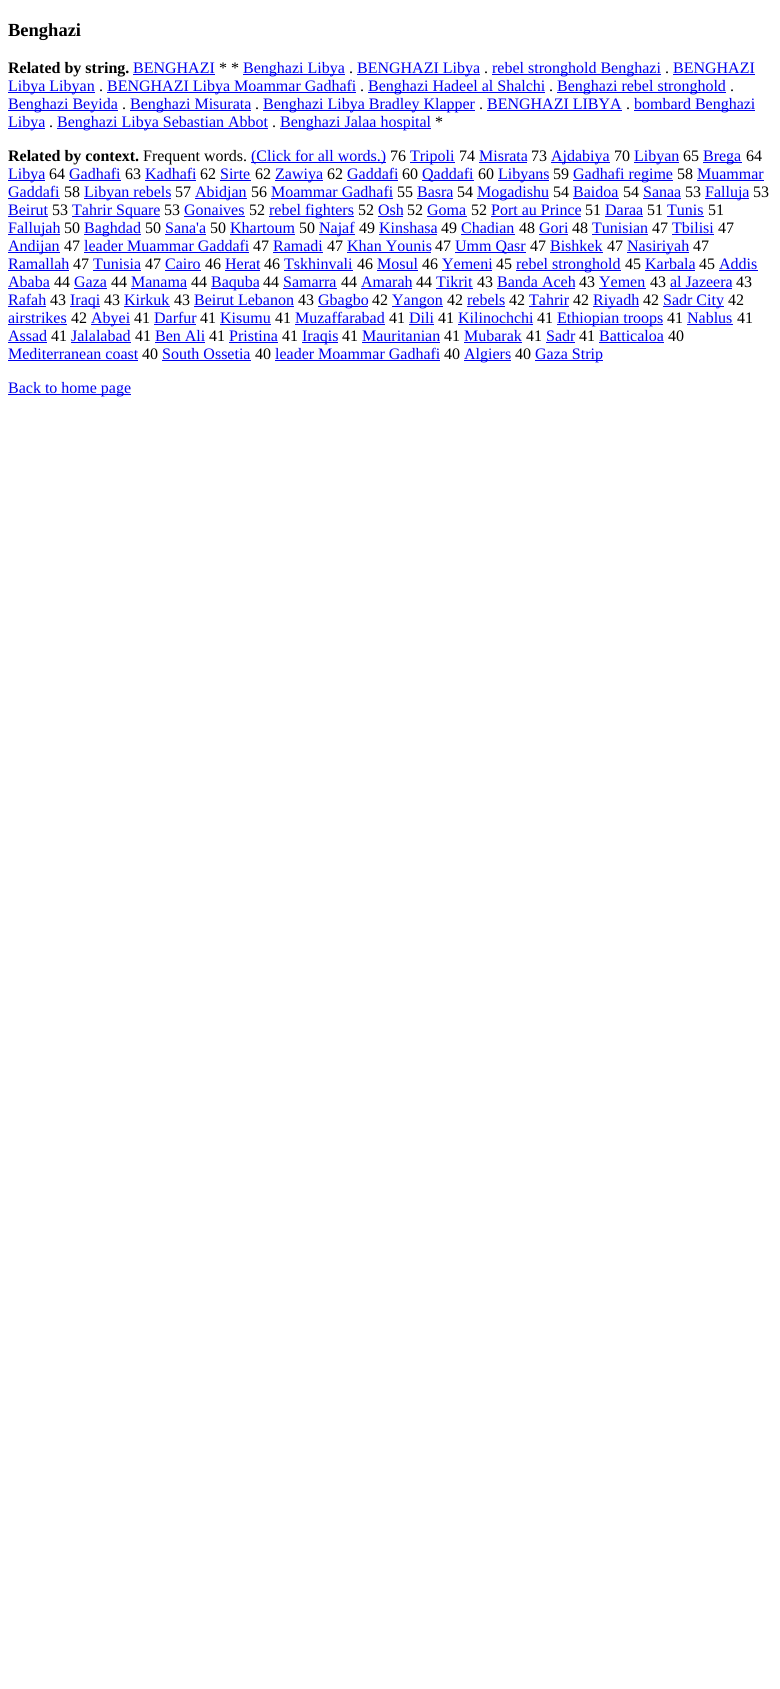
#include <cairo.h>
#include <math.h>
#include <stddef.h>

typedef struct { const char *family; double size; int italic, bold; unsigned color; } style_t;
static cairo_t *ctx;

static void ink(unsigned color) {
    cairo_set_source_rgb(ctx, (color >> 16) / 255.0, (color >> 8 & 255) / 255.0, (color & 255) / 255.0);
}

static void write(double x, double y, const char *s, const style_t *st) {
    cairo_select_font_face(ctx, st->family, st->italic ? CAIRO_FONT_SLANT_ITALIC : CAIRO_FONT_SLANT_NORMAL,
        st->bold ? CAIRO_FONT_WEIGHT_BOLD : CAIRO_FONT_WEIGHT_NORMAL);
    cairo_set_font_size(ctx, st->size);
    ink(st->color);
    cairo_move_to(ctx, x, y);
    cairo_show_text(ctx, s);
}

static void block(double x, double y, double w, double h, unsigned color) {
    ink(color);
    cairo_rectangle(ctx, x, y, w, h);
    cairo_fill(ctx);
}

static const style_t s1 = {"Liberation Serif", 18.5, 0, 1, 0x000000};
static const style_t s2 = {"Liberation Serif", 16, 0, 1, 0x000000};
static const style_t s3 = {"Liberation Serif", 16, 0, 0, 0x0000ee};
static const style_t s4 = {"Liberation Serif", 16, 0, 0, 0x000000};

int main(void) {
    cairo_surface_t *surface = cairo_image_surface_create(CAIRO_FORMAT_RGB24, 780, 1689);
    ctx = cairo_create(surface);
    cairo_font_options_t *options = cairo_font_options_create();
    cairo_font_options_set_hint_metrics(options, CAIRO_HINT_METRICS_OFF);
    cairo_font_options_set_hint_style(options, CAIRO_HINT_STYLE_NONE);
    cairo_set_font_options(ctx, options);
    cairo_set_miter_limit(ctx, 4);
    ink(0xffffff);
    cairo_paint(ctx);
    write(8, 36, "Benghazi", &s1);
    write(8, 73, "Related by string.", &s2);
    write(133, 73, "BENGHAZI", &s3);
    block(133, 74, 82, 1, 0x0000ee);
    write(219, 73, "* *", &s4);
    block(243, 74, 102, 1, 0x0000ee);
    write(243, 73, "Benghazi Libya", &s3);
    write(349, 73, ".", &s4);
    block(357, 74, 123, 1, 0x0000ee);
    write(357, 73, "BENGHAZI Libya", &s3);
    write(484, 73, ".", &s4);
    block(492, 74, 169, 1, 0x0000ee);
    write(492, 73, "rebel stronghold Benghazi", &s3);
    write(665, 73, ".", &s4);
    write(673, 73, "BENGHAZI", &s3);
    block(673, 74, 82, 1, 0x0000ee);
    block(8, 92, 87, 1, 0x0000ee);
    write(8, 91, "Libya Libyan", &s3);
    write(99, 91, ".", &s4);
    block(107, 92, 249, 1, 0x0000ee);
    write(107, 91, "BENGHAZI Libya Moammar Gadhafi", &s3);
    write(360, 91, ".", &s4);
    block(368, 92, 177, 1, 0x0000ee);
    write(368, 91, "Benghazi Hadeel al Shalchi", &s3);
    write(549, 91, ".", &s4);
    block(557, 92, 169, 1, 0x0000ee);
    write(557, 91, "Benghazi rebel stronghold", &s3);
    write(730, 91, ".", &s4);
    block(8, 110, 110, 1, 0x0000ee);
    write(8, 109, "Benghazi Beyida", &s3);
    write(122, 109, ".", &s4);
    block(130, 110, 121, 1, 0x0000ee);
    write(130, 109, "Benghazi Misurata", &s3);
    write(255, 109, ".", &s4);
    block(263, 110, 212, 1, 0x0000ee);
    write(263, 109, "Benghazi Libya Bradley Klapper", &s3);
    write(479, 109, ".", &s4);
    write(487, 109, "BENGHAZI LIBYA", &s3);
    block(487, 110, 135, 1, 0x0000ee);
    write(626, 109, ".", &s4);
    block(634, 110, 121, 1, 0x0000ee);
    write(634, 109, "bombard Benghazi", &s3);
    block(8, 128, 37, 1, 0x0000ee);
    write(8, 127, "Libya", &s3);
    block(57, 128, 211, 1, 0x0000ee);
    write(57, 127, "Benghazi Libya Sebastian Abbot", &s3);
    block(280, 128, 151, 1, 0x0000ee);
    write(280, 127, "Benghazi Jalaa hospital", &s3);
    write(435, 127, "*", &s4);
    write(49, 127, ".", &s4);
    write(272, 127, ".", &s4);
    write(8, 161, "Related by context.", &s2);
    write(143, 161, "Frequent words.", &s4);
    block(251, 162, 135, 1, 0x0000ee);
    write(251, 161, "(Click for all words.)", &s3);
    write(390, 161, "76", &s4);
    block(410, 162, 45, 1, 0x0000ee);
    write(410, 161, "Tripoli", &s3);
    write(459, 161, "74", &s4);
    write(479, 161, "Misrata", &s3);
    block(479, 162, 48, 1, 0x0000ee);
    write(531, 161, "73", &s4);
    block(551, 162, 59, 1, 0x0000ee);
    write(551, 161, "Ajdabiya", &s3);
    write(614, 161, "70", &s4);
    block(634, 162, 45, 1, 0x0000ee);
    write(634, 161, "Libyan", &s3);
    write(683, 161, "65", &s4);
    block(703, 162, 39, 1, 0x0000ee);
    write(703, 161, "Brega", &s3);
    write(746, 161, "64", &s4);
    block(8, 180, 37, 1, 0x0000ee);
    write(8, 179, "Libya", &s3);
    write(49, 179, "64", &s4);
    write(69, 179, "Gadhafi", &s3);
    block(69, 180, 52, 1, 0x0000ee);
    write(125, 179, "63", &s4);
    write(145, 179, "Kadhafi", &s3);
    block(145, 180, 51, 1, 0x0000ee);
    write(200, 179, "62", &s4);
    write(220, 179, "Sirte", &s3);
    block(220, 180, 31, 1, 0x0000ee);
    write(255, 179, "62", &s4);
    block(275, 180, 48, 1, 0x0000ee);
    write(275, 179, "Zawiya", &s3);
    write(327, 179, "62", &s4);
    write(347, 179, "Gaddafi", &s3);
    block(347, 180, 51, 1, 0x0000ee);
    write(402, 179, "60", &s4);
    block(422, 180, 52, 1, 0x0000ee);
    write(422, 179, "Qaddafi", &s3);
    write(478, 179, "60", &s4);
    block(498, 180, 51, 1, 0x0000ee);
    write(498, 179, "Libyans", &s3);
    write(553, 179, "59", &s4);
    block(573, 180, 100, 1, 0x0000ee);
    write(573, 179, "Gadhafi regime", &s3);
    write(677, 179, "58", &s4);
    write(697, 179, "Muammar", &s3);
    block(697, 180, 67, 1, 0x0000ee);
    write(8, 197, "Gaddafi", &s3);
    block(8, 198, 52, 1, 0x0000ee);
    write(64, 197, "58", &s4);
    block(84, 198, 87, 1, 0x0000ee);
    write(84, 197, "Libyan rebels", &s3);
    write(175, 197, "57", &s4);
    block(195, 198, 52, 1, 0x0000ee);
    write(195, 197, "Abidjan", &s3);
    write(251, 197, "56", &s4);
    write(271, 197, "Moammar Gadhafi", &s3);
    block(271, 198, 122, 1, 0x0000ee);
    write(397, 197, "55", &s4);
    write(417, 197, "Basra", &s3);
    block(417, 198, 36, 1, 0x0000ee);
    write(457, 197, "54", &s4);
    block(477, 198, 72, 1, 0x0000ee);
    write(477, 197, "Mogadishu", &s3);
    write(553, 197, "54", &s4);
    write(573, 197, "Baidoa", &s3);
    block(573, 198, 46, 1, 0x0000ee);
    write(623, 197, "54", &s4);
    write(643, 197, "Sanaa", &s3);
    block(643, 198, 38, 1, 0x0000ee);
    write(685, 197, "53", &s4);
    block(705, 198, 44, 1, 0x0000ee);
    write(705, 197, "Falluja", &s3);
    write(753, 197, "53", &s4);
    write(8, 215, "Beirut", &s3);
    block(8, 216, 40, 1, 0x0000ee);
    write(52, 215, "53", &s4);
    block(72, 216, 88, 1, 0x0000ee);
    write(72, 215, "Tahrir Square", &s3);
    write(164, 215, "53", &s4);
    write(184, 215, "Gonaives", &s3);
    block(184, 216, 61, 1, 0x0000ee);
    write(249, 215, "52", &s4);
    block(269, 216, 85, 1, 0x0000ee);
    write(269, 215, "rebel fighters", &s3);
    write(358, 215, "52", &s4);
    write(378, 215, "Osh", &s3);
    block(378, 216, 25, 1, 0x0000ee);
    write(407, 215, "52", &s4);
    write(427, 215, "Goma", &s3);
    block(427, 216, 40, 1, 0x0000ee);
    write(471, 215, "52", &s4);
    write(491, 215, "Port au Prince", &s3);
    block(491, 216, 90, 1, 0x0000ee);
    write(585, 215, "51", &s4);
    write(605, 215, "Daraa", &s3);
    block(605, 216, 38, 1, 0x0000ee);
    write(647, 215, "51", &s4);
    write(667, 215, "Tunis", &s3);
    block(667, 216, 37, 1, 0x0000ee);
    write(708, 215, "51", &s4);
    block(8, 234, 52, 1, 0x0000ee);
    write(8, 233, "Fallujah", &s3);
    write(64, 233, "50", &s4);
    block(84, 234, 57, 1, 0x0000ee);
    write(84, 233, "Baghdad", &s3);
    write(145, 233, "50", &s4);
    write(165, 233, "Sana'a", &s3);
    block(165, 234, 41, 1, 0x0000ee);
    write(210, 233, "50", &s4);
    write(230, 233, "Khartoum", &s3);
    block(230, 234, 65, 1, 0x0000ee);
    write(299, 233, "50", &s4);
    block(319, 234, 36, 1, 0x0000ee);
    write(319, 233, "Najaf", &s3);
    write(359, 233, "49", &s4);
    write(379, 233, "Kinshasa", &s3);
    block(379, 234, 58, 1, 0x0000ee);
    write(441, 233, "49", &s4);
    write(461, 233, "Chadian", &s3);
    block(461, 234, 54, 1, 0x0000ee);
    write(519, 233, "48", &s4);
    write(539, 233, "Gori", &s3);
    block(539, 234, 29, 1, 0x0000ee);
    write(572, 233, "48", &s4);
    write(592, 233, "Tunisian", &s3);
    block(592, 234, 56, 1, 0x0000ee);
    write(652, 233, "47", &s4);
    write(672, 233, "Tbilisi", &s3);
    block(672, 234, 42, 1, 0x0000ee);
    write(718, 233, "47", &s4);
    block(8, 252, 52, 1, 0x0000ee);
    write(8, 251, "Andijan", &s3);
    write(64, 251, "47", &s4);
    write(84, 251, "leader Muammar Gaddafi", &s3);
    block(84, 252, 165, 1, 0x0000ee);
    write(253, 251, "47", &s4);
    write(273, 251, "Ramadi", &s3);
    block(273, 252, 50, 1, 0x0000ee);
    write(327, 251, "47", &s4);
    write(347, 251, "Khan Younis", &s3);
    block(347, 252, 84, 1, 0x0000ee);
    write(435, 251, "47", &s4);
    block(455, 252, 71, 1, 0x0000ee);
    write(455, 251, "Umm Qasr", &s3);
    write(530, 251, "47", &s4);
    write(550, 251, "Bishkek", &s3);
    block(550, 252, 53, 1, 0x0000ee);
    write(607, 251, "47", &s4);
    block(627, 252, 62, 1, 0x0000ee);
    write(627, 251, "Nasiriyah", &s3);
    write(693, 251, "47", &s4);
    write(8, 269, "Ramallah", &s3);
    block(8, 270, 61, 1, 0x0000ee);
    write(73, 269, "47", &s4);
    write(93, 269, "Tunisia", &s3);
    block(93, 270, 48, 1, 0x0000ee);
    write(145, 269, "47", &s4);
    write(165, 269, "Cairo", &s3);
    block(165, 270, 36, 1, 0x0000ee);
    write(205, 269, "46", &s4);
    write(225, 269, "Herat", &s3);
    block(225, 270, 35, 1, 0x0000ee);
    write(264, 269, "46", &s4);
    write(284, 269, "Tskhinvali", &s3);
    block(284, 270, 69, 1, 0x0000ee);
    write(357, 269, "46", &s4);
    write(377, 269, "Mosul", &s3);
    block(377, 270, 41, 1, 0x0000ee);
    write(422, 269, "46", &s4);
    write(442, 269, "Yemeni", &s3);
    block(442, 270, 50, 1, 0x0000ee);
    write(496, 269, "45", &s4);
    block(516, 270, 105, 1, 0x0000ee);
    write(516, 269, "rebel stronghold", &s3);
    write(625, 269, "45", &s4);
    write(645, 269, "Karbala", &s3);
    block(645, 270, 50, 1, 0x0000ee);
    write(699, 269, "45", &s4);
    write(719, 269, "Addis", &s3);
    block(719, 270, 39, 1, 0x0000ee);
    write(8, 287, "Ababa", &s3);
    block(8, 288, 42, 1, 0x0000ee);
    write(54, 287, "44", &s4);
    write(74, 287, "Gaza", &s3);
    block(74, 288, 33, 1, 0x0000ee);
    write(111, 287, "44", &s4);
    write(131, 287, "Manama", &s3);
    block(131, 288, 56, 1, 0x0000ee);
    write(191, 287, "44", &s4);
    block(211, 288, 48, 1, 0x0000ee);
    write(211, 287, "Baquba", &s3);
    write(263, 287, "44", &s4);
    write(283, 287, "Samarra", &s3);
    block(283, 288, 54, 1, 0x0000ee);
    write(341, 287, "44", &s4);
    write(361, 287, "Amarah", &s3);
    block(361, 288, 51, 1, 0x0000ee);
    write(416, 287, "44", &s4);
    write(436, 287, "Tikrit", &s3);
    block(436, 288, 37, 1, 0x0000ee);
    write(477, 287, "43", &s4);
    write(497, 287, "Banda Aceh", &s3);
    block(497, 288, 78, 1, 0x0000ee);
    write(579, 287, "43", &s4);
    write(599, 287, "Yemen", &s3);
    block(599, 288, 47, 1, 0x0000ee);
    write(650, 287, "43", &s4);
    write(670, 287, "al Jazeera", &s3);
    block(670, 288, 62, 1, 0x0000ee);
    write(736, 287, "43", &s4);
    write(8, 305, "Rafah", &s3);
    block(8, 306, 38, 1, 0x0000ee);
    write(50, 305, "43", &s4);
    block(70, 306, 30, 1, 0x0000ee);
    write(70, 305, "Iraqi", &s3);
    write(104, 305, "43", &s4);
    write(124, 305, "Kirkuk", &s3);
    block(124, 306, 46, 1, 0x0000ee);
    write(174, 305, "43", &s4);
    write(194, 305, "Beirut Lebanon", &s3);
    block(194, 306, 100, 1, 0x0000ee);
    write(298, 305, "43", &s4);
    block(318, 306, 50, 1, 0x0000ee);
    write(318, 305, "Gbagbo", &s3);
    write(372, 305, "42", &s4);
    block(392, 306, 51, 1, 0x0000ee);
    write(392, 305, "Yangon", &s3);
    write(447, 305, "42", &s4);
    write(467, 305, "rebels", &s3);
    block(467, 306, 38, 1, 0x0000ee);
    write(509, 305, "42", &s4);
    write(529, 305, "Tahrir", &s3);
    block(529, 306, 40, 1, 0x0000ee);
    write(573, 305, "42", &s4);
    block(593, 306, 46, 1, 0x0000ee);
    write(593, 305, "Riyadh", &s3);
    write(643, 305, "42", &s4);
    block(663, 306, 61, 1, 0x0000ee);
    write(663, 305, "Sadr City", &s3);
    write(728, 305, "42", &s4);
    write(8, 323, "airstrikes", &s3);
    block(8, 324, 59, 1, 0x0000ee);
    write(71, 323, "42", &s4);
    block(91, 324, 39, 1, 0x0000ee);
    write(91, 323, "Abyei", &s3);
    write(134, 323, "41", &s4);
    write(154, 323, "Darfur", &s3);
    block(154, 324, 42, 1, 0x0000ee);
    write(200, 323, "41", &s4);
    write(220, 323, "Kisumu", &s3);
    block(220, 324, 51, 1, 0x0000ee);
    write(275, 323, "41", &s4);
    write(295, 323, "Muzaffarabad", &s3);
    block(295, 324, 90, 1, 0x0000ee);
    write(389, 323, "41", &s4);
    write(409, 323, "Dili", &s3);
    block(409, 324, 25, 1, 0x0000ee);
    write(438, 323, "41", &s4);
    write(458, 323, "Kilinochchi", &s3);
    block(458, 324, 75, 1, 0x0000ee);
    write(537, 323, "41", &s4);
    block(557, 324, 106, 1, 0x0000ee);
    write(557, 323, "Ethiopian troops", &s3);
    write(667, 323, "41", &s4);
    write(687, 323, "Nablus", &s3);
    block(687, 324, 46, 1, 0x0000ee);
    write(737, 323, "41", &s4);
    write(8, 341, "Assad", &s3);
    block(8, 342, 39, 1, 0x0000ee);
    write(51, 341, "41", &s4);
    write(71, 341, "Jalalabad", &s3);
    block(71, 342, 60, 1, 0x0000ee);
    write(135, 341, "41", &s4);
    write(155, 341, "Ben Ali", &s3);
    block(155, 342, 50, 1, 0x0000ee);
    write(209, 341, "41", &s4);
    write(229, 341, "Pristina", &s3);
    block(229, 342, 49, 1, 0x0000ee);
    write(282, 341, "41", &s4);
    block(302, 342, 36, 1, 0x0000ee);
    write(302, 341, "Iraqis", &s3);
    write(342, 341, "41", &s4);
    write(362, 341, "Mauritanian", &s3);
    block(362, 342, 78, 1, 0x0000ee);
    write(444, 341, "41", &s4);
    write(464, 341, "Mubarak", &s3);
    block(464, 342, 58, 1, 0x0000ee);
    write(526, 341, "41", &s4);
    write(546, 341, "Sadr", &s3);
    block(546, 342, 29, 1, 0x0000ee);
    write(579, 341, "41", &s4);
    write(599, 341, "Batticaloa", &s3);
    block(599, 342, 65, 1, 0x0000ee);
    write(668, 341, "40", &s4);
    write(8, 359, "Mediterranean coast", &s3);
    block(8, 360, 130, 1, 0x0000ee);
    write(142, 359, "40", &s4);
    write(162, 359, "South Ossetia", &s3);
    block(162, 360, 89, 1, 0x0000ee);
    write(255, 359, "40", &s4);
    write(275, 359, "leader Moammar Gadhafi", &s3);
    block(275, 360, 165, 1, 0x0000ee);
    write(444, 359, "40", &s4);
    block(464, 360, 47, 1, 0x0000ee);
    write(464, 359, "Algiers", &s3);
    write(515, 359, "40", &s4);
    block(535, 360, 68, 1, 0x0000ee);
    write(535, 359, "Gaza Strip", &s3);
    block(8, 394, 123, 1, 0x0000ee);
    write(8, 393, "Back to home page", &s3);
    cairo_surface_write_to_png(surface, "screenshot.png");
    cairo_font_options_destroy(options);
    cairo_destroy(ctx);
    cairo_surface_destroy(surface);
    return 0;
}
